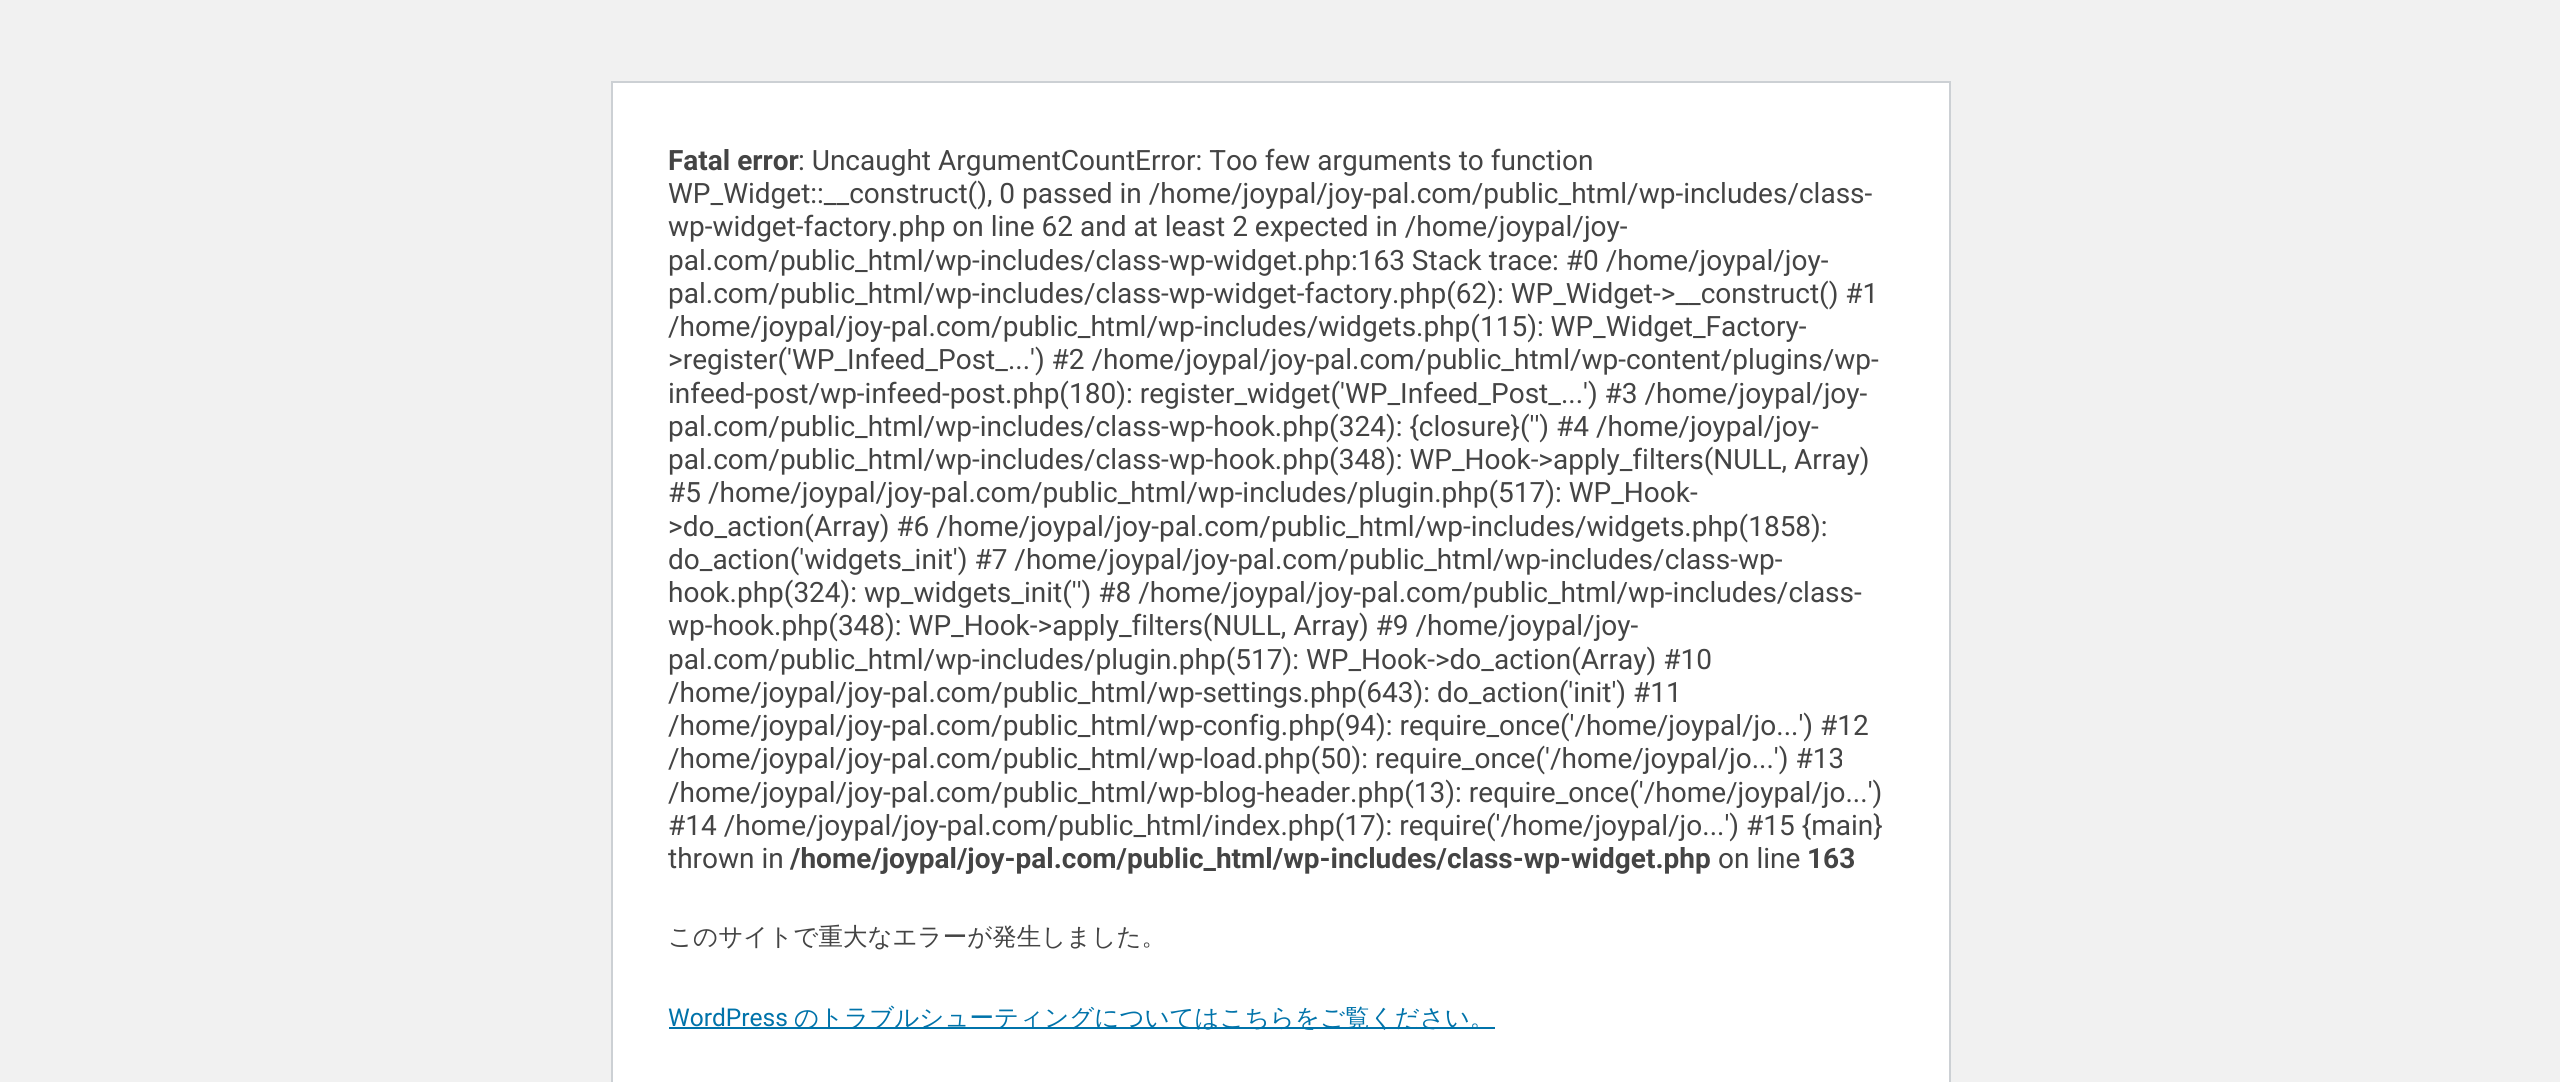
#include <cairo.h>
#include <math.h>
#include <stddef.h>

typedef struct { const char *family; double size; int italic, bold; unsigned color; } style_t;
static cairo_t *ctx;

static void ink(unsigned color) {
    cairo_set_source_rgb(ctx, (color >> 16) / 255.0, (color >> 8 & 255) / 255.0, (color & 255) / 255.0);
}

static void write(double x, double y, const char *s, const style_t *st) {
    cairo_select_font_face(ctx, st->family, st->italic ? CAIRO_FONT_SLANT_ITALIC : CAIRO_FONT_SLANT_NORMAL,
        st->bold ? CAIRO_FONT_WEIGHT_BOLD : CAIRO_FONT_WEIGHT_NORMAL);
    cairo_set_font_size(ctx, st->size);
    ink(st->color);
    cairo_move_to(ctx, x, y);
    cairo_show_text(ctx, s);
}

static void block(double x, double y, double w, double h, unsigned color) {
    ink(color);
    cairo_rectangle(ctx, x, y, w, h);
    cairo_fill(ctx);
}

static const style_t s1 = {"Roboto", 28, 0, 1, 0x444444};
static const style_t s2 = {"Roboto", 28, 0, 0, 0x444444};
static const style_t s3 = {"WenQuanYi Zen Hei Medium", 24.5, 0, 0, 0x444444};
static const style_t s4 = {"Roboto", 24.5, 0, 0, 0x0073aa};
static const style_t s5 = {"WenQuanYi Zen Hei Medium", 24.5, 0, 0, 0x0073aa};

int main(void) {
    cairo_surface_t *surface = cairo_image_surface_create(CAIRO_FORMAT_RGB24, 2560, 1082);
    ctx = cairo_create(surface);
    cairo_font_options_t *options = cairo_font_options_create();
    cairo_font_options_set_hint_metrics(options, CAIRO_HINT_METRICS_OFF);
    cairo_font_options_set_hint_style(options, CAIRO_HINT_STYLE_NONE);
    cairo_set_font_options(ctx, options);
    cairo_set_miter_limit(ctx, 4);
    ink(0xf1f1f1);
    cairo_paint(ctx);
    ink(0xffffff);
    cairo_rectangle(ctx, 612, 82, 1338, 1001);
    cairo_fill_preserve(ctx);
    ink(0xccd0d4);
    cairo_stroke(ctx);
    write(668, 170, "Fatal error", &s1);
    write(798, 170, ": Uncaught ArgumentCountError: Too few arguments to function", &s2);
    write(668, 203, "WP_Widget::__construct(), 0 passed in /home/joypal/joy-pal.com/public_html/wp-includes/class-", &s2);
    write(668, 236, "wp-widget-factory.php on line 62 and at least 2 expected in /home/joypal/joy-", &s2);
    write(668, 270, "pal.com/public_html/wp-includes/class-wp-widget.php:163 Stack trace: #0 /home/joypal/joy-", &s2);
    write(668, 303, "pal.com/public_html/wp-includes/class-wp-widget-factory.php(62): WP_Widget->__construct() #1", &s2);
    write(668, 336, "/home/joypal/joy-pal.com/public_html/wp-includes/widgets.php(115): WP_Widget_Factory-", &s2);
    write(668, 369, ">register('WP_Infeed_Post_...') #2 /home/joypal/joy-pal.com/public_html/wp-content/plugins/wp-", &s2);
    write(668, 403, "infeed-post/wp-infeed-post.php(180): register_widget('WP_Infeed_Post_...') #3 /home/joypal/joy-", &s2);
    write(668, 436, "pal.com/public_html/wp-includes/class-wp-hook.php(324): {closure}('') #4 /home/joypal/joy-", &s2);
    write(668, 469, "pal.com/public_html/wp-includes/class-wp-hook.php(348): WP_Hook->apply_filters(NULL, Array)", &s2);
    write(668, 502, "#5 /home/joypal/joy-pal.com/public_html/wp-includes/plugin.php(517): WP_Hook-", &s2);
    write(668, 536, ">do_action(Array) #6 /home/joypal/joy-pal.com/public_html/wp-includes/widgets.php(1858):", &s2);
    write(668, 569, "do_action('widgets_init') #7 /home/joypal/joy-pal.com/public_html/wp-includes/class-wp-", &s2);
    write(668, 602, "hook.php(324): wp_widgets_init('') #8 /home/joypal/joy-pal.com/public_html/wp-includes/class-", &s2);
    write(668, 635, "wp-hook.php(348): WP_Hook->apply_filters(NULL, Array) #9 /home/joypal/joy-", &s2);
    write(668, 669, "pal.com/public_html/wp-includes/plugin.php(517): WP_Hook->do_action(Array) #10", &s2);
    write(668, 702, "/home/joypal/joy-pal.com/public_html/wp-settings.php(643): do_action('init') #11", &s2);
    write(668, 735, "/home/joypal/joy-pal.com/public_html/wp-config.php(94): require_once('/home/joypal/jo...') #12", &s2);
    write(668, 768, "/home/joypal/joy-pal.com/public_html/wp-load.php(50): require_once('/home/joypal/jo...') #13", &s2);
    write(668, 802, "/home/joypal/joy-pal.com/public_html/wp-blog-header.php(13): require_once('/home/joypal/jo...')", &s2);
    write(668, 835, "#14 /home/joypal/joy-pal.com/public_html/index.php(17): require('/home/joypal/jo...') #15 {main}", &s2);
    write(668, 868, "thrown in", &s2);
    write(790, 868, "/home/joypal/joy-pal.com/public_html/wp-includes/class-wp-widget.php", &s1);
    write(1718, 868, "on line", &s2);
    write(1807, 868, "163", &s1);
    write(668, 945, "このサイトで重大なエラーが発生しました。", &s3);
    write(668, 1026, "WordPress", &s4);
    block(669, 1027, 826, 2, 0x0073aa);
    write(794, 1026, "のトラブルシューティングについてはこちらをご覧ください。", &s5);
    cairo_surface_write_to_png(surface, "screenshot.png");
    cairo_font_options_destroy(options);
    cairo_destroy(ctx);
    cairo_surface_destroy(surface);
    return 0;
}
